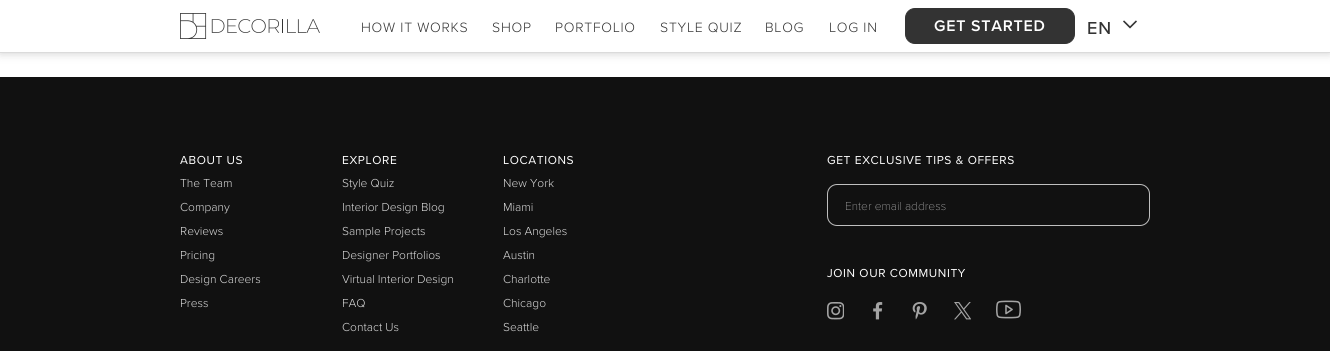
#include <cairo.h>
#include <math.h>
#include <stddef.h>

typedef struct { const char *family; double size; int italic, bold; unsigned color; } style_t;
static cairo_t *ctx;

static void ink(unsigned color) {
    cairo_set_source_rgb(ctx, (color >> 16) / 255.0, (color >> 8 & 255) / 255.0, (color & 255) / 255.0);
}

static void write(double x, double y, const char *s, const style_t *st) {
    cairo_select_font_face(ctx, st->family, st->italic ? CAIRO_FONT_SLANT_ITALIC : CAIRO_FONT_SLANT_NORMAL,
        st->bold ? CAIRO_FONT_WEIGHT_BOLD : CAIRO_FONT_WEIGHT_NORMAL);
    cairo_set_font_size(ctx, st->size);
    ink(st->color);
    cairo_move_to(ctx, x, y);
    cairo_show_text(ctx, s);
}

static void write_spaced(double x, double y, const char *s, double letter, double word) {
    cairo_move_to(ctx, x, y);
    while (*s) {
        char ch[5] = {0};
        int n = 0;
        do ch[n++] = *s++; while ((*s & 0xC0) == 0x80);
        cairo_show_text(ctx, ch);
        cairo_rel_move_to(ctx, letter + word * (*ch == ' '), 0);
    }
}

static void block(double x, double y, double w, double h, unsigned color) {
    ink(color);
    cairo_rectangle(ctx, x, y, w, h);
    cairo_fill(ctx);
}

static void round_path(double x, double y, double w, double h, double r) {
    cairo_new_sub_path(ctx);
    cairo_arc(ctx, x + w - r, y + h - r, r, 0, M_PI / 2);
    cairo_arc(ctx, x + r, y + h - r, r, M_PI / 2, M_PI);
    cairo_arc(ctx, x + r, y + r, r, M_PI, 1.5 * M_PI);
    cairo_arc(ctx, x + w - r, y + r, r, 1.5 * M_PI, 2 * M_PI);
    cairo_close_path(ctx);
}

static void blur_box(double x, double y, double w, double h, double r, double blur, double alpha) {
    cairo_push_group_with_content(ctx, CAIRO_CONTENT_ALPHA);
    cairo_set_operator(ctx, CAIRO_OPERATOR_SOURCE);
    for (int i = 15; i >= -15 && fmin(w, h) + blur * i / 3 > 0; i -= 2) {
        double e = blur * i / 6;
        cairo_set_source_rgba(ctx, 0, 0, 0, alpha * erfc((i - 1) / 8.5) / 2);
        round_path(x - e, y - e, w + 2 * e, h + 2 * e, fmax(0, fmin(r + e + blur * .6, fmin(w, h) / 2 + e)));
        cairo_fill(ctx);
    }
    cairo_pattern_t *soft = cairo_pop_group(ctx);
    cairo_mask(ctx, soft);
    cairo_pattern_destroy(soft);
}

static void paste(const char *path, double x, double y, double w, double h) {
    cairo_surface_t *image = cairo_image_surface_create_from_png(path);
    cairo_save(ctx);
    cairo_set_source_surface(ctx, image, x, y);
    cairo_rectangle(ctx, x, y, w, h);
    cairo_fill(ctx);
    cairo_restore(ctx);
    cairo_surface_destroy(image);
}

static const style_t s1 = {"Proxima Nova Light", 12, 0, 0, 0xdbdbdb};
static const style_t s2 = {"Proxima Nova Thin", 12, 0, 0, 0xbfbfbf};

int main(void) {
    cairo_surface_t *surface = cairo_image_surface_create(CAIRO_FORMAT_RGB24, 1330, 351);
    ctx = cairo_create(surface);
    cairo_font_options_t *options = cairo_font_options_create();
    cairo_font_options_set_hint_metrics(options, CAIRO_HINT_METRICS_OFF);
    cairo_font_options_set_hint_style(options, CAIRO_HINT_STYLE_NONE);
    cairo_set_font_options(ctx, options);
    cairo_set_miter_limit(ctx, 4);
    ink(0xffffff);
    cairo_paint(ctx);
    ink(0x000000);
    blur_box(0, 0, 1330, 53, 0, 5, 0.2);
    block(0, 0, 1330, 52, 0xffffff);
    block(0, 52, 1330, 1, 0xdbdbdb);
    paste("pic1.png", 180, 13, 140, 26);
    cairo_select_font_face(ctx, "Proxima Nova Light", CAIRO_FONT_SLANT_NORMAL, CAIRO_FONT_WEIGHT_NORMAL);
    cairo_set_font_size(ctx, 14);
    ink(0x333333);
    write_spaced(361, 32, "HOW IT WORKS", 0.75, 0);
    write_spaced(492, 32, "SHOP", 0.75, 0);
    write_spaced(555, 32, "PORTFOLIO", 0.75, 0);
    write_spaced(660, 32, "STYLE QUIZ", 0.75, 0);
    write_spaced(765, 32, "BLOG", 0.75, 0);
    write_spaced(829, 32, "LOG IN", 0.75, 0);
    round_path(905.5, 8.5, 169, 35, 9.5);
    cairo_fill_preserve(ctx);
    cairo_set_line_width(ctx, 1);
    cairo_stroke(ctx);
    cairo_select_font_face(ctx, "Proxima Nova SemiBold", CAIRO_FONT_SLANT_NORMAL, CAIRO_FONT_WEIGHT_NORMAL);
    cairo_set_font_size(ctx, 16);
    ink(0xffffff);
    write_spaced(934, 31, "GET STARTED", 0.75, 0);
    cairo_select_font_face(ctx, "Proxima Nova Medium", CAIRO_FONT_SLANT_NORMAL, CAIRO_FONT_WEIGHT_NORMAL);
    cairo_set_font_size(ctx, 18);
    ink(0x333333);
    write_spaced(1087, 34, "EN", 1, 0);
    paste("pic2.png", 1123, 20, 14, 9);
    block(0, 77, 1330, 274, 0x111111);
    cairo_select_font_face(ctx, "Proxima Nova", CAIRO_FONT_SLANT_NORMAL, CAIRO_FONT_WEIGHT_NORMAL);
    cairo_set_font_size(ctx, 12);
    ink(0xffffff);
    write_spaced(180, 164, "ABOUT US", 0.6, 0);
    write(180, 187, "The Team", &s1);
    write(180, 211, "Company", &s1);
    write(180, 235, "Reviews", &s1);
    write(180, 259, "Pricing", &s1);
    write(180, 283, "Design Careers", &s1);
    write(180, 307, "Press", &s1);
    cairo_select_font_face(ctx, "Proxima Nova", CAIRO_FONT_SLANT_NORMAL, CAIRO_FONT_WEIGHT_NORMAL);
    ink(0xffffff);
    write_spaced(342, 164, "EXPLORE", 0.6, 0);
    write(342, 187, "Style Quiz", &s1);
    write(342, 211, "Interior Design Blog", &s1);
    write(342, 235, "Sample Projects", &s1);
    write(342, 259, "Designer Portfolios", &s1);
    write(342, 283, "Virtual Interior Design", &s1);
    write(342, 307, "FAQ", &s1);
    write(342, 331, "Contact Us", &s1);
    cairo_select_font_face(ctx, "Proxima Nova", CAIRO_FONT_SLANT_NORMAL, CAIRO_FONT_WEIGHT_NORMAL);
    ink(0xffffff);
    write_spaced(503, 164, "LOCATIONS", 0.6, 0);
    write(503, 187, "New York", &s1);
    write(503, 211, "Miami", &s1);
    write(503, 235, "Los Angeles", &s1);
    write(503, 259, "Austin", &s1);
    write(503, 283, "Charlotte", &s1);
    write(503, 307, "Chicago", &s1);
    write(503, 331, "Seattle", &s1);
    cairo_select_font_face(ctx, "Proxima Nova", CAIRO_FONT_SLANT_NORMAL, CAIRO_FONT_WEIGHT_NORMAL);
    ink(0xffffff);
    write_spaced(827, 164, "GET EXCLUSIVE TIPS & OFFERS", 0.6, 0);
    round_path(827.5, 184.5, 322, 41, 9.5);
    ink(0xbfbfbf);
    cairo_stroke(ctx);
    write(845, 210, "Enter email address", &s2);
    cairo_select_font_face(ctx, "Proxima Nova", CAIRO_FONT_SLANT_NORMAL, CAIRO_FONT_WEIGHT_NORMAL);
    ink(0xffffff);
    write_spaced(827, 277, "JOIN OUR COMMUNITY", 0.6, 0);
    paste("pic3.png", 827, 302, 17, 18);
    paste("pic4.png", 873, 302, 10, 18);
    paste("pic5.png", 912, 302, 15, 18);
    paste("pic6.png", 954, 302, 17, 18);
    paste("pic7.png", 996, 300, 25, 19);
    cairo_surface_write_to_png(surface, "screenshot.png");
    cairo_font_options_destroy(options);
    cairo_destroy(ctx);
    cairo_surface_destroy(surface);
    return 0;
}
